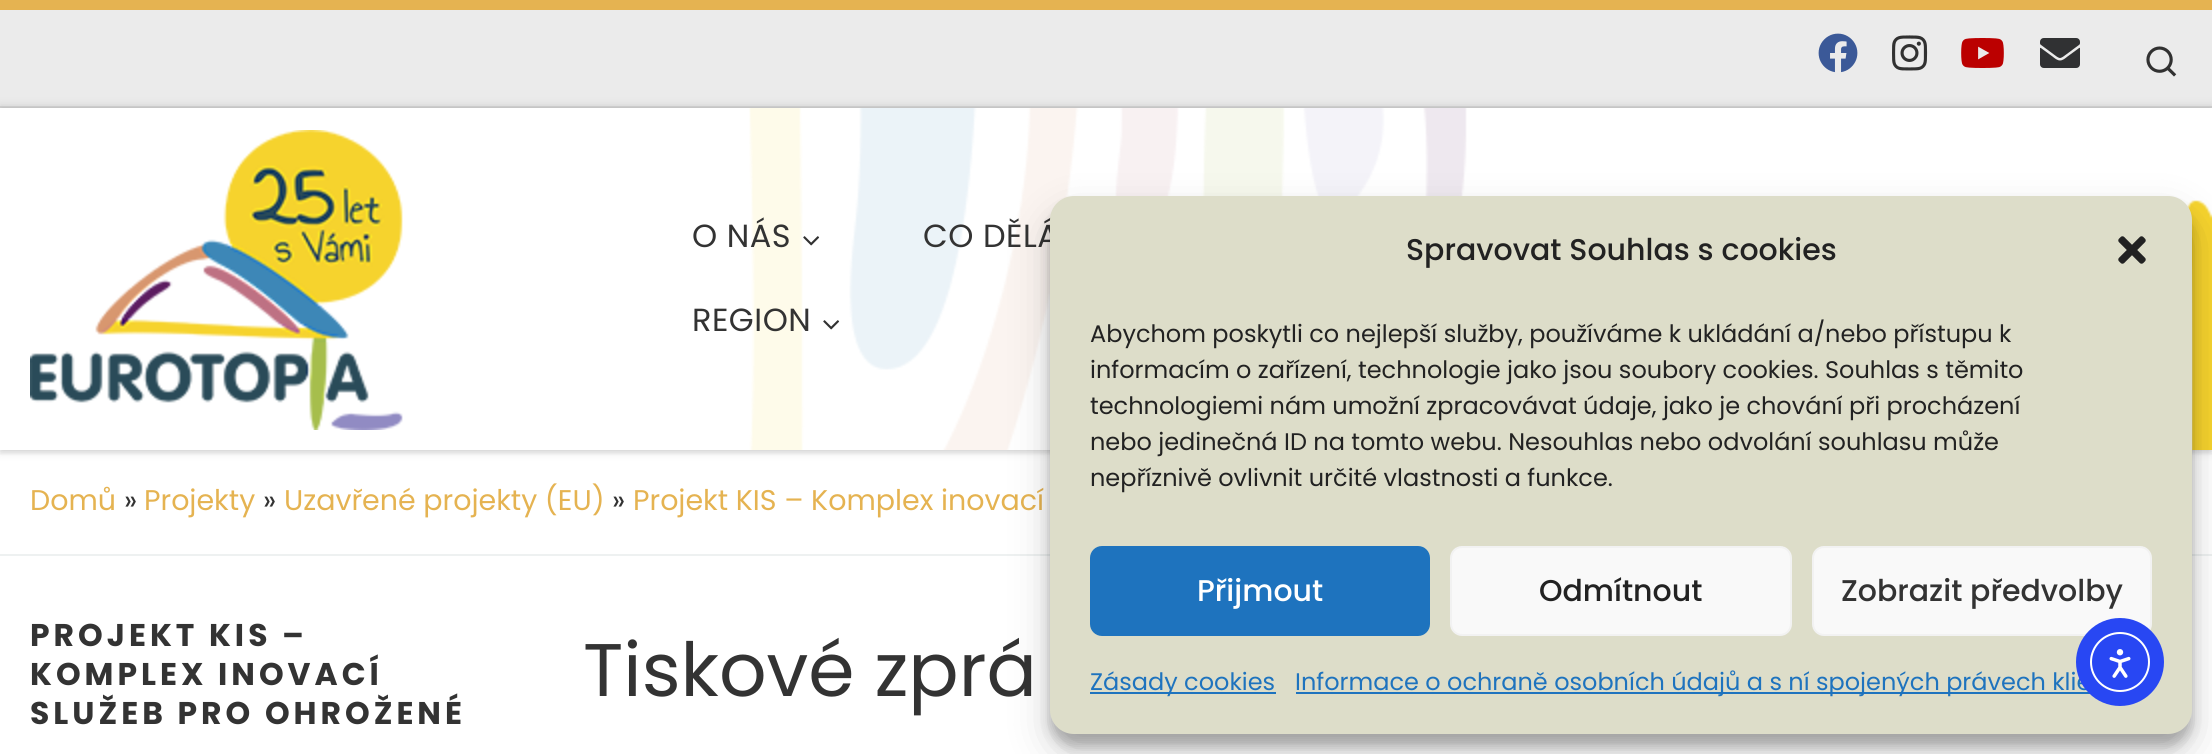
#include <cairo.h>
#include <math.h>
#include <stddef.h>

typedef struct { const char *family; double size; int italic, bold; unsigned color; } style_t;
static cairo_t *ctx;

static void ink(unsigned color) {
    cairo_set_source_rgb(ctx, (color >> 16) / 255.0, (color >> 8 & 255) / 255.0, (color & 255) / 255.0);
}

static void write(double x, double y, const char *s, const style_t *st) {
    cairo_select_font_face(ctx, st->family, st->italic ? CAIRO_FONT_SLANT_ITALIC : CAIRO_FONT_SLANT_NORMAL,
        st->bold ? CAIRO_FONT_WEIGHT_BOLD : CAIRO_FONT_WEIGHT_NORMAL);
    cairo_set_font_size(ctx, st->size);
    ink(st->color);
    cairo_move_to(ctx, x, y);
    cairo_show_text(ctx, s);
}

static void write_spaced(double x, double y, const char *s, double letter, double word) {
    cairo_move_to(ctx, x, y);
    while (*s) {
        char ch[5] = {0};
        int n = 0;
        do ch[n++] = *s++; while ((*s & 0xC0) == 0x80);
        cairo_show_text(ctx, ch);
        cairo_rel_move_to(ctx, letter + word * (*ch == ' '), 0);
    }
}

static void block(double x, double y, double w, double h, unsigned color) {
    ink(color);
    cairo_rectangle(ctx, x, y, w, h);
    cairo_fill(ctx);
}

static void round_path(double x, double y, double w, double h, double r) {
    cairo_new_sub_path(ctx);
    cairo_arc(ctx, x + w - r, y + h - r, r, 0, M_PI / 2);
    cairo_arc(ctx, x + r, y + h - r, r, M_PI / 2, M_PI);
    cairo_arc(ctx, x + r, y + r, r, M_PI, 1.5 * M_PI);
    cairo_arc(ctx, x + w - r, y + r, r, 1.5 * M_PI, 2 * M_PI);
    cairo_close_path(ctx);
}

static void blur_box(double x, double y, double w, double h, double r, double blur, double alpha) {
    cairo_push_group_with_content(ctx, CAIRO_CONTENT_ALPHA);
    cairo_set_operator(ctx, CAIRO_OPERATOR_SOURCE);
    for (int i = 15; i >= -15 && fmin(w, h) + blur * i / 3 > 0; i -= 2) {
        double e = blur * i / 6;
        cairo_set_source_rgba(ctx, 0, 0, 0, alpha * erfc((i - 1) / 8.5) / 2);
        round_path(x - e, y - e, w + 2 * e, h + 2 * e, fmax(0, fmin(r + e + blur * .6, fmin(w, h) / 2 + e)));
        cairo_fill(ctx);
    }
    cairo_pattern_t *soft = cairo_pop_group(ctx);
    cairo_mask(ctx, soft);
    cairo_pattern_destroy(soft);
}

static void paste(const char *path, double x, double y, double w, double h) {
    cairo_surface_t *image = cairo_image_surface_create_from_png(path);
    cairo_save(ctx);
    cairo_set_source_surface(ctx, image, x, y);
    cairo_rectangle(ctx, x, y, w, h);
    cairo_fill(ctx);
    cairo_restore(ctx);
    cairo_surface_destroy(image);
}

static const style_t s1 = {"Poppins", 28.5, 0, 0, 0xe5b351};
static const style_t s2 = {"Poppins", 28.5, 0, 0, 0x333333};
static const style_t s3 = {"Poppins", 74.5, 0, 0, 0x333333};
static const style_t s4 = {"Poppins Medium", 30, 0, 0, 0x222222};
static const style_t s5 = {"Poppins", 24, 0, 0, 0x222222};
static const style_t s6 = {"Poppins Medium", 30, 0, 0, 0xffffff};
static const style_t s7 = {"Poppins Medium", 30, 0, 0, 0x333333};
static const style_t s8 = {"Poppins", 24, 0, 0, 0x1e73be};

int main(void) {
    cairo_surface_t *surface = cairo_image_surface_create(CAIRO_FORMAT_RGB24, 2212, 754);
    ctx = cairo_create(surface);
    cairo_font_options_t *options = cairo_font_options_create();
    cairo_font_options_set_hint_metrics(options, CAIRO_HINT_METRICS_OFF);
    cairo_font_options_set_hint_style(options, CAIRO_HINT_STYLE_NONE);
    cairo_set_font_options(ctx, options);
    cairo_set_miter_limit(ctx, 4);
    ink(0xffffff);
    cairo_paint(ctx);
    cairo_save(ctx);
    cairo_rectangle(ctx, 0, 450, 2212, 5);
    cairo_clip(ctx);
    ink(0x666666);
    blur_box(0, 4, 2212, 450, 0, 2, 0.08);
    cairo_restore(ctx);
    block(0, 0, 2212, 10, 0xe5b351);
    block(0, 10, 2212, 96, 0xebebeb);
    block(0, 106, 2212, 2, 0xdadada);
    paste("pic1.png", 1818, 33, 40, 40);
    paste("pic2.png", 1892, 35, 36, 36);
    paste("pic3.png", 1961, 38, 43, 30);
    paste("pic4.png", 2040, 38, 40, 30);
    paste("pic5.png", 2146, 46, 31, 31);
    cairo_save(ctx);
    cairo_set_fill_rule(ctx, CAIRO_FILL_RULE_EVEN_ODD);
    cairo_new_path(ctx);
    cairo_move_to(ctx, 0, 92);
    cairo_line_to(ctx, 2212, 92);
    cairo_line_to(ctx, 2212, 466);
    cairo_line_to(ctx, 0, 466);
    cairo_close_path(ctx);
    cairo_move_to(ctx, 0, 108);
    cairo_line_to(ctx, 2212, 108);
    cairo_line_to(ctx, 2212, 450);
    cairo_line_to(ctx, 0, 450);
    cairo_close_path(ctx);
    cairo_clip(ctx);
    ink(0x000000);
    blur_box(0, 108, 2212, 342, 0, 5, 0.2);
    cairo_restore(ctx);
    paste("pic6.png", 749, 108, 1463, 342);
    paste("pic7.png", 30, 130, 373, 300);
    cairo_select_font_face(ctx, "Poppins", CAIRO_FONT_SLANT_NORMAL, CAIRO_FONT_WEIGHT_NORMAL);
    cairo_set_font_size(ctx, 32);
    ink(0x333333);
    write_spaced(692, 247, "O NÁS", 0.5, 0);
    paste("pic8.png", 803, 236, 17, 10);
    write_spaced(923, 247, "CO DĚLÁ", 0.5, 0);
    write_spaced(692, 331, "REGION", 0.5, 0);
    paste("pic8.png", 823, 320, 17, 10);
    block(0, 554, 2212, 2, 0xeef1f1);
    write(30, 510, "Domů", &s1);
    write(124, 510, "»", &s2);
    write(144, 510, "Projekty", &s1);
    write(263, 510, "»", &s2);
    write(284, 510, "Uzavřené projekty (EU)", &s1);
    write(612, 510, "»", &s2);
    write(633, 510, "Projekt KIS – Komplex inovací", &s1);
    cairo_select_font_face(ctx, "Poppins", CAIRO_FONT_SLANT_NORMAL, CAIRO_FONT_WEIGHT_BOLD);
    cairo_set_font_size(ctx, 31.4);
    ink(0x333333);
    write_spaced(30, 646, "PROJEKT KIS –", 4, 0);
    write_spaced(30, 685, "KOMPLEX INOVACÍ", 4, 0);
    write_spaced(30, 724, "SLUŽEB PRO OHROŽENÉ", 4, 0);
    write(583, 696, "Tiskové zprá", &s3);
    ink(0x000000);
    blur_box(1050, 208, 1142, 538, 24, 6, 0.23);
    blur_box(1050, 216, 1142, 538, 24, 20, 0.19);
    ink(0xddddc9);
    round_path(1050, 196, 1142, 538, 24);
    cairo_fill(ctx);
    write(1406, 260, "Spravovat Souhlas s cookies", &s4);
    paste("pic9.png", 2118, 236, 28, 28);
    write(1090, 342, "Abychom poskytli co nejlepší služby, používáme k ukládání a/nebo přístupu k", &s5);
    write(1090, 378, "informacím o zařízení, technologie jako jsou soubory cookies. Souhlas s těmito", &s5);
    write(1090, 414, "technologiemi nám umožní zpracovávat údaje, jako je chování při procházení", &s5);
    write(1090, 450, "nebo jedinečná ID na tomto webu. Nesouhlas nebo odvolání souhlasu může", &s5);
    write(1090, 486, "nepříznivě ovlivnit určité vlastnosti a funkce.", &s5);
    ink(0x1e73be);
    round_path(1091, 547, 338, 88, 11);
    cairo_fill_preserve(ctx);
    cairo_stroke(ctx);
    write(1197, 601, "Přijmout", &s6);
    ink(0xf9f9f9);
    round_path(1451, 547, 340, 88, 11);
    cairo_fill_preserve(ctx);
    ink(0xf2f2f2);
    cairo_stroke(ctx);
    write(1539, 601, "Odmítnout", &s4);
    ink(0xf9f9f9);
    round_path(1813, 547, 338, 88, 11);
    cairo_fill_preserve(ctx);
    ink(0xf2f2f2);
    cairo_stroke(ctx);
    write(1841, 601, "Zobrazit předvolby", &s7);
    block(1090, 692, 186, 2, 0x1e73be);
    write(1090, 690, "Zásady cookies", &s8);
    block(1296, 692, 794, 2, 0x1e73be);
    write(1295, 690, "Informace o ochraně osobních údajů a s ní spojených právech klie", &s8);
    ink(0x2847f3);
    cairo_new_path(ctx);
    cairo_arc(ctx, 2120, 662, 44, 0, 2 * M_PI);
    cairo_fill(ctx);
    cairo_arc(ctx, 2120, 662, 29, 0, 2 * M_PI);
    ink(0xffffff);
    cairo_stroke(ctx);
    paste("pic10.png", 2109, 649, 22, 29);
    cairo_surface_write_to_png(surface, "screenshot.png");
    cairo_font_options_destroy(options);
    cairo_destroy(ctx);
    cairo_surface_destroy(surface);
    return 0;
}
